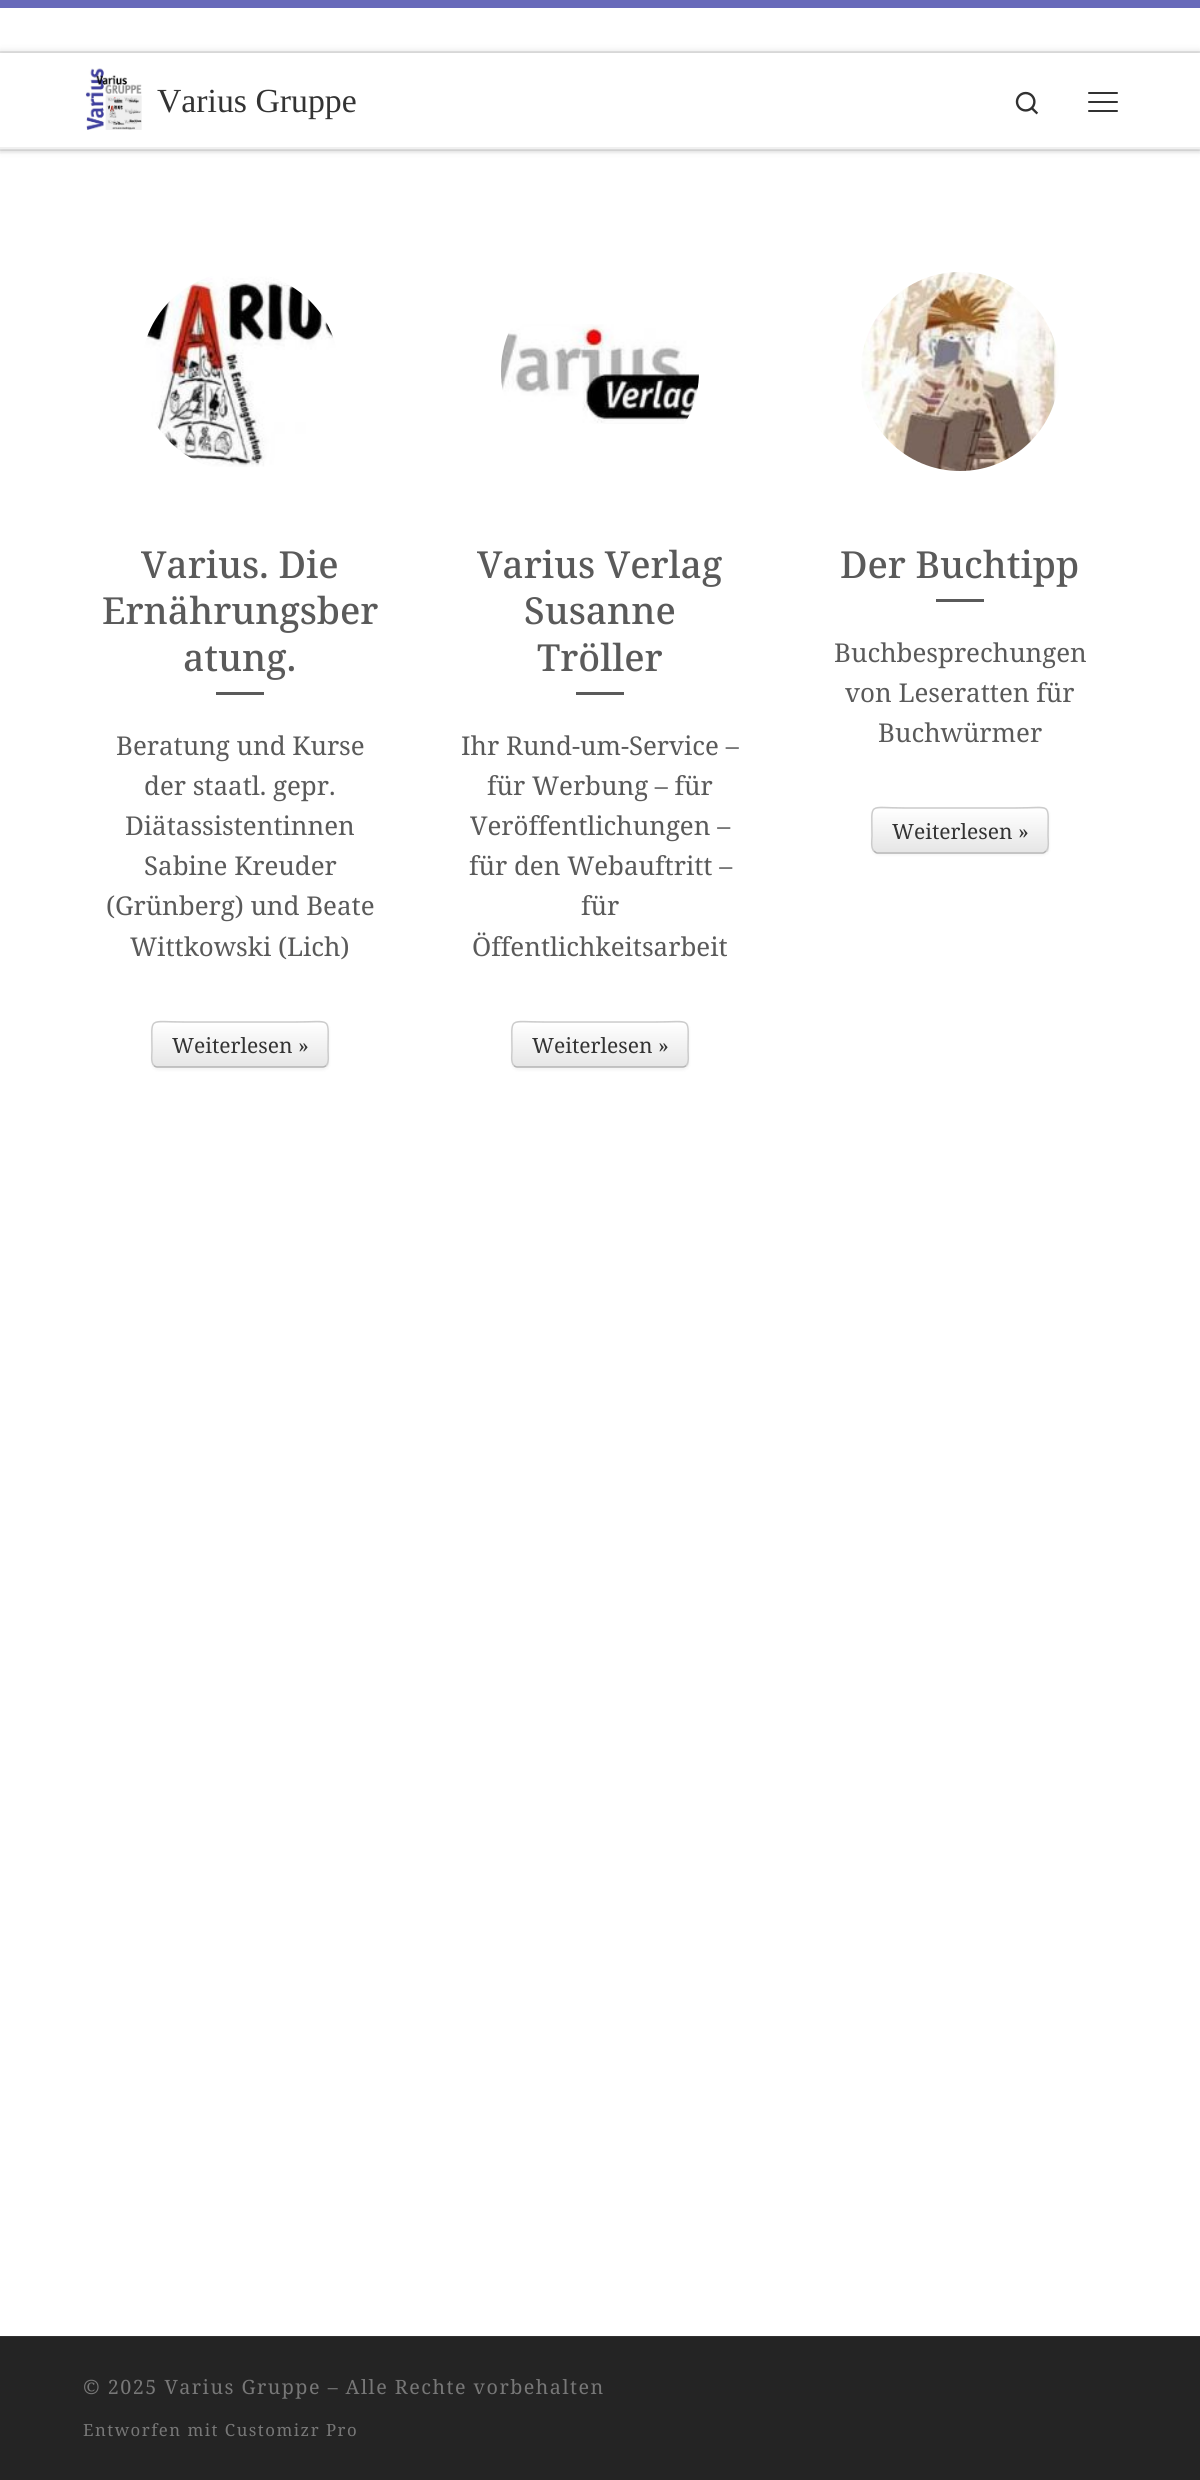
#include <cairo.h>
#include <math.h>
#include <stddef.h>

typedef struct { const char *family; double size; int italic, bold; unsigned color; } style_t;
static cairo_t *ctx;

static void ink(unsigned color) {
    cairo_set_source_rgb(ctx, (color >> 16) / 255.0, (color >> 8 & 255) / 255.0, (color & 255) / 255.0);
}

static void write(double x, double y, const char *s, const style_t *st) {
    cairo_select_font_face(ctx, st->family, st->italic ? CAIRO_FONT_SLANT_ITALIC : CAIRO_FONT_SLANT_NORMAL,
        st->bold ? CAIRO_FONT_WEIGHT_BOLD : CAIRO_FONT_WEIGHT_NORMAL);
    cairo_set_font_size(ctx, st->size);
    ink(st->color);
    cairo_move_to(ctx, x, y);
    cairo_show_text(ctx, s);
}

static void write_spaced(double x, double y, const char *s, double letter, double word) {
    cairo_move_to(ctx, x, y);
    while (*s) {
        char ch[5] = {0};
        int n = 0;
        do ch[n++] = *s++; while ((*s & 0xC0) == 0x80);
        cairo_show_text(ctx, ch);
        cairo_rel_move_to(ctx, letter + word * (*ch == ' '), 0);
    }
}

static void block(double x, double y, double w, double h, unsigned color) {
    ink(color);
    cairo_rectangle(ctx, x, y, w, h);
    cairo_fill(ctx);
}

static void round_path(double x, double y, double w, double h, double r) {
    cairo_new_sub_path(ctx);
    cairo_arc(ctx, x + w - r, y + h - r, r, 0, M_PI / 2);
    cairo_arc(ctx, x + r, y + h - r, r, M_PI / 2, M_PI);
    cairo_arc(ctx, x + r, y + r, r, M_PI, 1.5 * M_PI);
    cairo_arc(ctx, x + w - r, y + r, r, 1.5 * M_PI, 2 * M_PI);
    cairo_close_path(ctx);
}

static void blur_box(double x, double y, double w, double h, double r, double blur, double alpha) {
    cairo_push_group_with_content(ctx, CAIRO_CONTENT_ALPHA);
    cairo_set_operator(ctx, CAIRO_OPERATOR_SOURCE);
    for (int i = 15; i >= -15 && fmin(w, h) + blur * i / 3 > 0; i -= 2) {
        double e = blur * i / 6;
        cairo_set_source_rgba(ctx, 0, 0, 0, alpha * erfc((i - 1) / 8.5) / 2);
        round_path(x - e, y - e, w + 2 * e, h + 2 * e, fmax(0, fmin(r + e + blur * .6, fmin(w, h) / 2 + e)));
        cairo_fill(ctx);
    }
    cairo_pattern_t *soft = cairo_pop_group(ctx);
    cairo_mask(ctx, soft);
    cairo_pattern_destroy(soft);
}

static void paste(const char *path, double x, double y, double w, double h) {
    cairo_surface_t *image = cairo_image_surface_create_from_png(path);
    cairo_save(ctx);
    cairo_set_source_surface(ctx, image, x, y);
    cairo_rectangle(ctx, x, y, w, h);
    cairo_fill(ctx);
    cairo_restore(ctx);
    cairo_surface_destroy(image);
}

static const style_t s1 = {"Noto Serif Medium", 37.25, 0, 0, 0x5a5a5a};
static const style_t s2 = {"Noto Serif", 25.9, 0, 0, 0x5a5a5a};
static const style_t s3 = {"Liberation Serif", 33.75, 0, 0, 0x333333};
static const style_t s4 = {"Noto Serif", 21, 0, 0, 0x333333};

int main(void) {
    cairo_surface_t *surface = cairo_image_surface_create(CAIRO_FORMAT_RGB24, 1200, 2480);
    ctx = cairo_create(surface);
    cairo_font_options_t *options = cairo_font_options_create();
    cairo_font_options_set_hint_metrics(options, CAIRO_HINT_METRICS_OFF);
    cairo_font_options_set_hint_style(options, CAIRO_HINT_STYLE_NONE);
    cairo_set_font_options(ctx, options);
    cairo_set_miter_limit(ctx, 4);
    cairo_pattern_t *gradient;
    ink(0xffffff);
    cairo_paint(ctx);
    paste("pic3.png", 141, 272, 198, 195);
    cairo_save(ctx);
    cairo_rectangle(ctx, 83, 225, 315, 293);
    cairo_clip(ctx);
    round_path(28.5, 159.5, 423, 424, 211.5);
    ink(0xffffff);
    cairo_set_line_width(ctx, 225);
    cairo_stroke(ctx);
    cairo_restore(ctx);
    write(141, 578, "Varius. Die", &s1);
    write(102, 624, "Ernährungsber", &s1);
    write(183, 671, "atung.", &s1);
    paste("pic4.png", 501, 324, 198, 100);
    cairo_save(ctx);
    cairo_rectangle(ctx, 443, 225, 315, 293);
    cairo_clip(ctx);
    round_path(388.5, 159.5, 423, 424, 211.5);
    ink(0xffffff);
    cairo_set_line_width(ctx, 225);
    cairo_stroke(ctx);
    cairo_restore(ctx);
    write(477, 578, "Varius Verlag", &s1);
    write(524, 624, "Susanne", &s1);
    write(537, 671, "Tröller", &s1);
    paste("pic5.png", 861, 272, 198, 199);
    write(834, 662, "Buchbesprechungen", &s2);
    write(845, 702, "von Leseratten für", &s2);
    cairo_save(ctx);
    cairo_rectangle(ctx, 803, 225, 315, 293);
    cairo_clip(ctx);
    round_path(748.5, 159.5, 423, 424, 211.5);
    ink(0xffffff);
    cairo_set_line_width(ctx, 225);
    cairo_stroke(ctx);
    cairo_restore(ctx);
    cairo_save(ctx);
    cairo_rectangle(ctx, 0, 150, 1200, 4);
    cairo_clip(ctx);
    ink(0x666666);
    blur_box(0, 3, 1200, 150, 0, 1.5, 0.08);
    cairo_restore(ctx);
    block(0, 0, 1200, 8, 0x686aba);
    cairo_set_source_rgba(ctx, 0.192, 0.192, 0.192, 0.09);
    cairo_rectangle(ctx, 0, 149, 1200, 2);
    cairo_fill(ctx);
    block(0, 51, 1200, 2, 0xececec);
    cairo_set_source_rgba(ctx, 1, 1, 1, 0.15);
    cairo_rectangle(ctx, 0, 149, 1200, 1);
    cairo_fill(ctx);
    ink(0x000000);
    blur_box(0, 53, 1200, 96, 0, 4, 0.2);
    block(0, 53, 1200, 94, 0xffffff);
    paste("pic1.png", 85, 68, 57, 62);
    write(157, 112, "Varius Gruppe", &s3);
    paste("pic2.png", 1015, 91, 24, 24);
    ink(0x313131);
    round_path(1088, 92, 30, 2, 1);
    cairo_fill(ctx);
    round_path(1088, 101, 30, 2, 1);
    cairo_fill(ctx);
    round_path(1088, 110, 30, 2, 1);
    cairo_fill(ctx);
    block(0, 147, 1200, 2, 0xf0f0f0);
    block(216, 692, 48, 3, 0x5a5a5a);
    write(116, 755, "Beratung und Kurse", &s2);
    write(144, 795, "der staatl. gepr.", &s2);
    write(125, 835, "Diätassistentinnen", &s2);
    write(144, 875, "Sabine Kreuder", &s2);
    write(106, 915, "(Grünberg) und Beate", &s2);
    write(130, 956, "Wittkowski (Lich)", &s2);
    ink(0x000000);
    blur_box(152, 1023, 177, 47, 6, 1.5, 0.05);
    ink(0xf5f5f5);
    round_path(152, 1022, 177, 46, 6);
    cairo_fill(ctx);
    cairo_save(ctx);
    round_path(152, 1022, 177, 46, 6);
    cairo_clip(ctx);
    gradient = cairo_pattern_create_linear(240, 1023, 240, 1067);
    cairo_pattern_add_color_stop_rgba(gradient, 0, 1, 1, 1, 1);
    cairo_pattern_add_color_stop_rgba(gradient, 1, 0.902, 0.902, 0.902, 1);
    cairo_set_source(ctx, gradient);
    cairo_pattern_destroy(gradient);
    cairo_rectangle(ctx, 152, 1023, 177, 44);
    cairo_fill(ctx);
    cairo_restore(ctx);
    cairo_new_path(ctx);
    cairo_move_to(ctx, 326, 1065.5);
    cairo_curve_to(ctx, 325, 1066.5, 324, 1067, 322.5, 1067);
    cairo_line_to(ctx, 157.5, 1067);
    cairo_curve_to(ctx, 156, 1067, 155, 1066.5, 154, 1065.5);
    ink(0xb3b3b3);
    cairo_set_line_width(ctx, 1.5);
    cairo_stroke(ctx);
    cairo_new_path(ctx);
    cairo_move_to(ctx, 154, 1065.5);
    cairo_curve_to(ctx, 150.5, 1062.5, 152, 1054, 152, 1050.5);
    cairo_curve_to(ctx, 152, 1015.5, 147, 1022, 185, 1022);
    cairo_line_to(ctx, 295, 1022);
    cairo_curve_to(ctx, 333, 1022, 328, 1015.5, 328, 1050.5);
    cairo_curve_to(ctx, 328, 1054, 329.5, 1062.5, 326, 1065.5);
    ink(0xcccccc);
    cairo_stroke(ctx);
    write(172, 1053, "Weiterlesen »", &s4);
    block(576, 692, 48, 3, 0x5a5a5a);
    write(461, 755, "Ihr Rund-um-Service –", &s2);
    write(487, 795, "für Werbung – für", &s2);
    write(470, 835, "Veröffentlichungen –", &s2);
    write(469, 875, "für den Webauftritt –", &s2);
    write(581, 915, "für", &s2);
    write(472, 956, "Öffentlichkeitsarbeit", &s2);
    ink(0x000000);
    blur_box(512, 1023, 177, 47, 6, 1.5, 0.05);
    ink(0xf5f5f5);
    round_path(512, 1022, 177, 46, 6);
    cairo_fill(ctx);
    cairo_save(ctx);
    round_path(512, 1022, 177, 46, 6);
    cairo_clip(ctx);
    gradient = cairo_pattern_create_linear(600, 1023, 600, 1067);
    cairo_pattern_add_color_stop_rgba(gradient, 0, 1, 1, 1, 1);
    cairo_pattern_add_color_stop_rgba(gradient, 1, 0.902, 0.902, 0.902, 1);
    cairo_set_source(ctx, gradient);
    cairo_pattern_destroy(gradient);
    cairo_rectangle(ctx, 512, 1023, 177, 44);
    cairo_fill(ctx);
    cairo_restore(ctx);
    cairo_new_path(ctx);
    cairo_move_to(ctx, 686, 1065.5);
    cairo_curve_to(ctx, 685, 1066.5, 684, 1067, 682.5, 1067);
    cairo_line_to(ctx, 517.5, 1067);
    cairo_curve_to(ctx, 516, 1067, 515, 1066.5, 514, 1065.5);
    ink(0xb3b3b3);
    cairo_stroke(ctx);
    cairo_new_path(ctx);
    cairo_move_to(ctx, 514, 1065.5);
    cairo_curve_to(ctx, 510.5, 1062.5, 512, 1054, 512, 1050.5);
    cairo_curve_to(ctx, 512, 1015.5, 507, 1022, 545, 1022);
    cairo_line_to(ctx, 655, 1022);
    cairo_curve_to(ctx, 693, 1022, 688, 1015.5, 688, 1050.5);
    cairo_curve_to(ctx, 688, 1054, 689.5, 1062.5, 686, 1065.5);
    ink(0xcccccc);
    cairo_stroke(ctx);
    write(532, 1053, "Weiterlesen »", &s4);
    write(840, 578, "Der Buchtipp", &s1);
    block(936, 599, 48, 3, 0x5a5a5a);
    write(878, 742, "Buchwürmer", &s2);
    ink(0x000000);
    blur_box(872, 809, 177, 46, 6, 1.5, 0.05);
    ink(0xf5f5f5);
    round_path(872, 807, 177, 47, 6);
    cairo_fill(ctx);
    cairo_save(ctx);
    round_path(872, 807, 177, 47, 6);
    cairo_clip(ctx);
    gradient = cairo_pattern_create_linear(960, 809, 960, 852);
    cairo_pattern_add_color_stop_rgba(gradient, 0, 1, 1, 1, 1);
    cairo_pattern_add_color_stop_rgba(gradient, 1, 0.902, 0.902, 0.902, 1);
    cairo_set_source(ctx, gradient);
    cairo_pattern_destroy(gradient);
    cairo_rectangle(ctx, 872, 809, 177, 43);
    cairo_fill(ctx);
    cairo_restore(ctx);
    cairo_new_path(ctx);
    cairo_move_to(ctx, 1046, 851);
    cairo_curve_to(ctx, 1045, 852, 1044, 853, 1042.5, 853);
    cairo_line_to(ctx, 877.5, 853);
    cairo_curve_to(ctx, 876, 853, 875, 852, 874, 851);
    ink(0xb3b3b3);
    cairo_stroke(ctx);
    cairo_new_path(ctx);
    cairo_move_to(ctx, 874, 851);
    cairo_curve_to(ctx, 870.5, 848, 872, 839.5, 872, 836);
    cairo_curve_to(ctx, 872, 801, 867, 808, 905, 808);
    cairo_line_to(ctx, 1015, 808);
    cairo_curve_to(ctx, 1053, 808, 1048, 801, 1048, 836);
    cairo_curve_to(ctx, 1048, 839.5, 1049.5, 848, 1046, 851);
    ink(0xcccccc);
    cairo_stroke(ctx);
    write(892, 839, "Weiterlesen »", &s4);
    block(0, 2336, 1200, 1, 0x313131);
    block(0, 2337, 1200, 143, 0x242424);
    cairo_set_font_size(ctx, 19.7);
    ink(0x777777);
    write_spaced(83, 2394, "© 2025 Varius Gruppe – Alle Rechte vorbehalten", 1.5, 0);
    cairo_set_font_size(ctx, 16.75);
    write_spaced(83, 2436, "Entworfen mit Customizr Pro", 1.5, 0);
    cairo_surface_write_to_png(surface, "screenshot.png");
    cairo_font_options_destroy(options);
    cairo_destroy(ctx);
    cairo_surface_destroy(surface);
    return 0;
}
